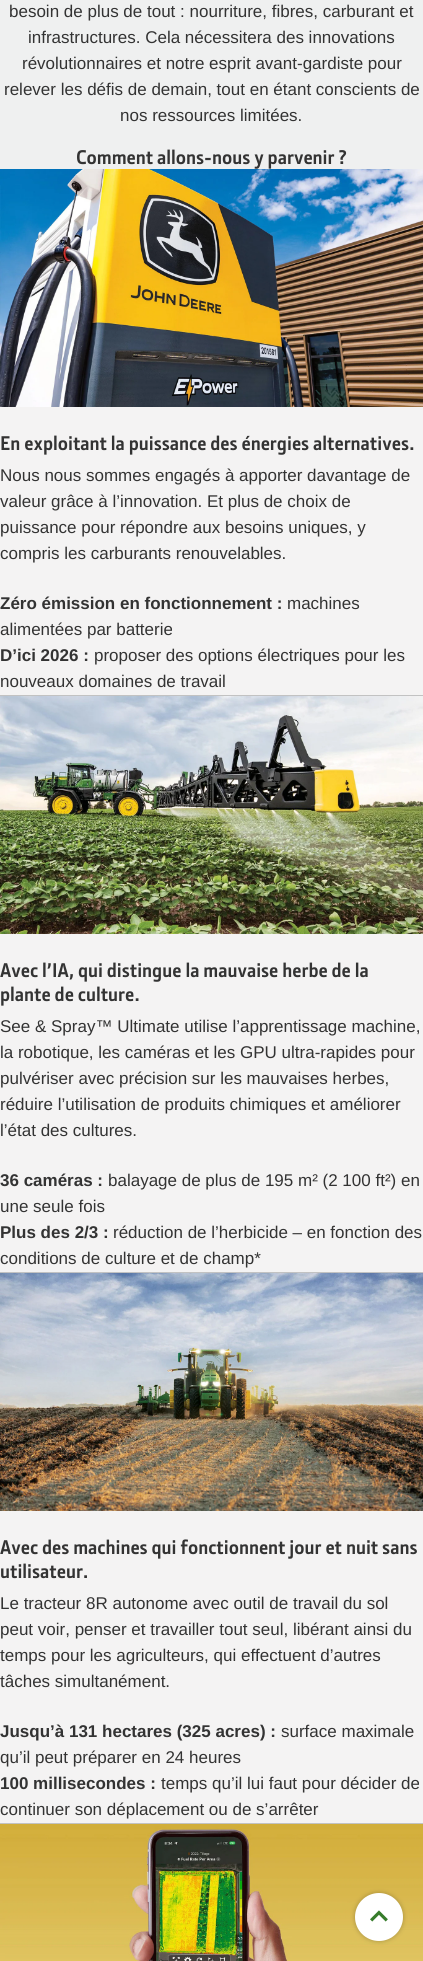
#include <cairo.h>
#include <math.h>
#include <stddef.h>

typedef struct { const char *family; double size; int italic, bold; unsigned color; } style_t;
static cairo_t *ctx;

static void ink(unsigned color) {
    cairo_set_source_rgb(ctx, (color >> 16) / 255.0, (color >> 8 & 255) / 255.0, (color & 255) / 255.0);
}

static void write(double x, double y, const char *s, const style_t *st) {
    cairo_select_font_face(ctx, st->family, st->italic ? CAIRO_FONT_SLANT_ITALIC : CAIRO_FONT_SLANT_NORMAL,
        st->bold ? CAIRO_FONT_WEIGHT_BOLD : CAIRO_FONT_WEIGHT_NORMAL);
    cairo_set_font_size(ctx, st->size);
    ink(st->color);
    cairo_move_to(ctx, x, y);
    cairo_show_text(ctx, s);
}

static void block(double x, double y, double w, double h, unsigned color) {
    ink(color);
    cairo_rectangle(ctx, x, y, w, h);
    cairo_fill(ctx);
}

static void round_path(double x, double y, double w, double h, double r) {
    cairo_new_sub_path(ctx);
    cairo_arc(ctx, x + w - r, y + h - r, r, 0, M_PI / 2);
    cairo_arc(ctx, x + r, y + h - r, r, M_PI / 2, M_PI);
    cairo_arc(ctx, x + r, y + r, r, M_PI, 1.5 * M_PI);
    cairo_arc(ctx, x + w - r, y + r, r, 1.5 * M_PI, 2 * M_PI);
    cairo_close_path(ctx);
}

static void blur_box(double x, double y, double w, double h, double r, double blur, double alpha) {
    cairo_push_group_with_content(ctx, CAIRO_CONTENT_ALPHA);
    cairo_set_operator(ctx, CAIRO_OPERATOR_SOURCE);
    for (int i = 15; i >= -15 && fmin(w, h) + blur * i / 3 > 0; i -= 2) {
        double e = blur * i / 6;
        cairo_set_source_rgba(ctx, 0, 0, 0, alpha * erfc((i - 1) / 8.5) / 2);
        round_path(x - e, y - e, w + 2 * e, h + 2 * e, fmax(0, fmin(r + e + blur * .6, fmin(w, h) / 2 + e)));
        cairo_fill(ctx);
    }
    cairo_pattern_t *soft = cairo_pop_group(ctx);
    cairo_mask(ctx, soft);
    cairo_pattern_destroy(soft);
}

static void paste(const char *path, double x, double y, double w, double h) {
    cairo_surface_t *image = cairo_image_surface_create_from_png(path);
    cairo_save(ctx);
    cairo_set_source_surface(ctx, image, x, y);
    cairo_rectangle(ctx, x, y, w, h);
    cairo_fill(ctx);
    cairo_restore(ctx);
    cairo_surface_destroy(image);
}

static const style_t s1 = {"Liberation Sans", 17, 0, 0, 0x333333};
static const style_t s2 = {"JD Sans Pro", 20, 0, 1, 0x333333};
static const style_t s3 = {"Liberation Sans", 17, 0, 1, 0x333333};

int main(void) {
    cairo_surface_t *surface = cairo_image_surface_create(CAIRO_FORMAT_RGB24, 423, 1961);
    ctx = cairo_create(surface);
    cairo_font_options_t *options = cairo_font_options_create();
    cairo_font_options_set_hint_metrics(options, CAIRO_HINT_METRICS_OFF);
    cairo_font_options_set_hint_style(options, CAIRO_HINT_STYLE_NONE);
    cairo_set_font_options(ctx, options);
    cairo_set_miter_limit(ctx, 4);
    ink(0xeff0f0);
    cairo_paint(ctx);
    write(9, 17, "besoin de plus de tout : nourriture, fibres, carburant et", &s1);
    write(28, 43, "infrastructures. Cela nécessitera des innovations", &s1);
    write(22, 69, "révolutionnaires et notre esprit avant-gardiste pour", &s1);
    write(4, 95, "relever les défis de demain, tout en étant conscients de", &s1);
    write(120, 121, "nos ressources limitées.", &s1);
    write(76, 164, "Comment allons-nous y parvenir ?", &s2);
    block(0, 695, 423, 1, 0xc2c2c2);
    block(0, 407, 423, 288, 0xf4f3f3);
    paste("pic1.png", 0, 169, 423, 238);
    write(0, 450, "En exploitant la puissance des énergies alternatives.", &s2);
    write(0, 481, "Nous nous sommes engagés à apporter davantage de", &s1);
    write(0, 507, "valeur grâce à l’innovation. Et plus de choix de", &s1);
    write(0, 533, "puissance pour répondre aux besoins uniques, y", &s1);
    write(0, 559, "compris les carburants renouvelables.", &s1);
    write(0, 609, "Zéro émission en fonctionnement :", &s3);
    write(287, 609, "machines", &s1);
    write(0, 635, "alimentées par batterie", &s1);
    write(0, 661, "D’ici 2026 :", &s3);
    write(94, 661, "proposer des options électriques pour les", &s1);
    write(0, 687, "nouveaux domaines de travail", &s1);
    block(0, 1272, 423, 1, 0xc2c2c2);
    block(0, 934, 423, 338, 0xf4f3f3);
    paste("pic2.png", 0, 696, 423, 238);
    write(0, 977, "Avec l’IA, qui distingue la mauvaise herbe de la", &s2);
    write(0, 1001, "plante de culture.", &s2);
    write(0, 1032, "See & Spray™ Ultimate utilise l’apprentissage machine,", &s1);
    write(0, 1058, "la robotique, les caméras et les GPU ultra-rapides pour", &s1);
    write(0, 1084, "pulvériser avec précision sur les mauvaises herbes,", &s1);
    write(0, 1110, "réduire l’utilisation de produits chimiques et améliorer", &s1);
    write(0, 1136, "l’état des cultures.", &s1);
    write(0, 1186, "36 caméras :", &s3);
    write(108, 1186, "balayage de plus de 195 m² (2 100 ft²) en", &s1);
    write(0, 1212, "une seule fois", &s1);
    write(0, 1238, "Plus des 2/3 :", &s3);
    write(113, 1238, "réduction de l’herbicide – en fonction des", &s1);
    write(0, 1264, "conditions de culture et de champ*", &s1);
    block(0, 1823, 423, 1, 0xc2c2c2);
    block(0, 1511, 423, 312, 0xf4f3f3);
    paste("pic3.png", 0, 1273, 423, 238);
    write(0, 1554, "Avec des machines qui fonctionnent jour et nuit sans", &s2);
    write(0, 1578, "utilisateur.", &s2);
    write(0, 1609, "Le tracteur 8R autonome avec outil de travail du sol", &s1);
    write(0, 1635, "peut voir, penser et travailler tout seul, libérant ainsi du", &s1);
    write(0, 1661, "temps pour les agriculteurs, qui effectuent d’autres", &s1);
    write(0, 1687, "tâches simultanément.", &s1);
    write(0, 1737, "Jusqu’à 131 hectares (325 acres) :", &s3);
    write(281, 1737, "surface maximale", &s1);
    write(0, 1763, "qu’il peut préparer en 24 heures", &s1);
    write(0, 1789, "100 millisecondes :", &s3);
    write(161, 1789, "temps qu’il lui faut pour décider de", &s1);
    write(0, 1815, "continuer son déplacement ou de s’arrêter", &s1);
    paste("pic4.png", 0, 1824, 423, 137);
    ink(0x000000);
    blur_box(355, 1893, 48, 48, 24, 2.5, 0.25);
    ink(0xffffff);
    cairo_arc(ctx, 379, 1917, 24, 0, 2 * M_PI);
    cairo_fill(ctx);
    paste("pic5.png", 370, 1910, 18, 12);
    cairo_surface_write_to_png(surface, "screenshot.png");
    cairo_font_options_destroy(options);
    cairo_destroy(ctx);
    cairo_surface_destroy(surface);
    return 0;
}
